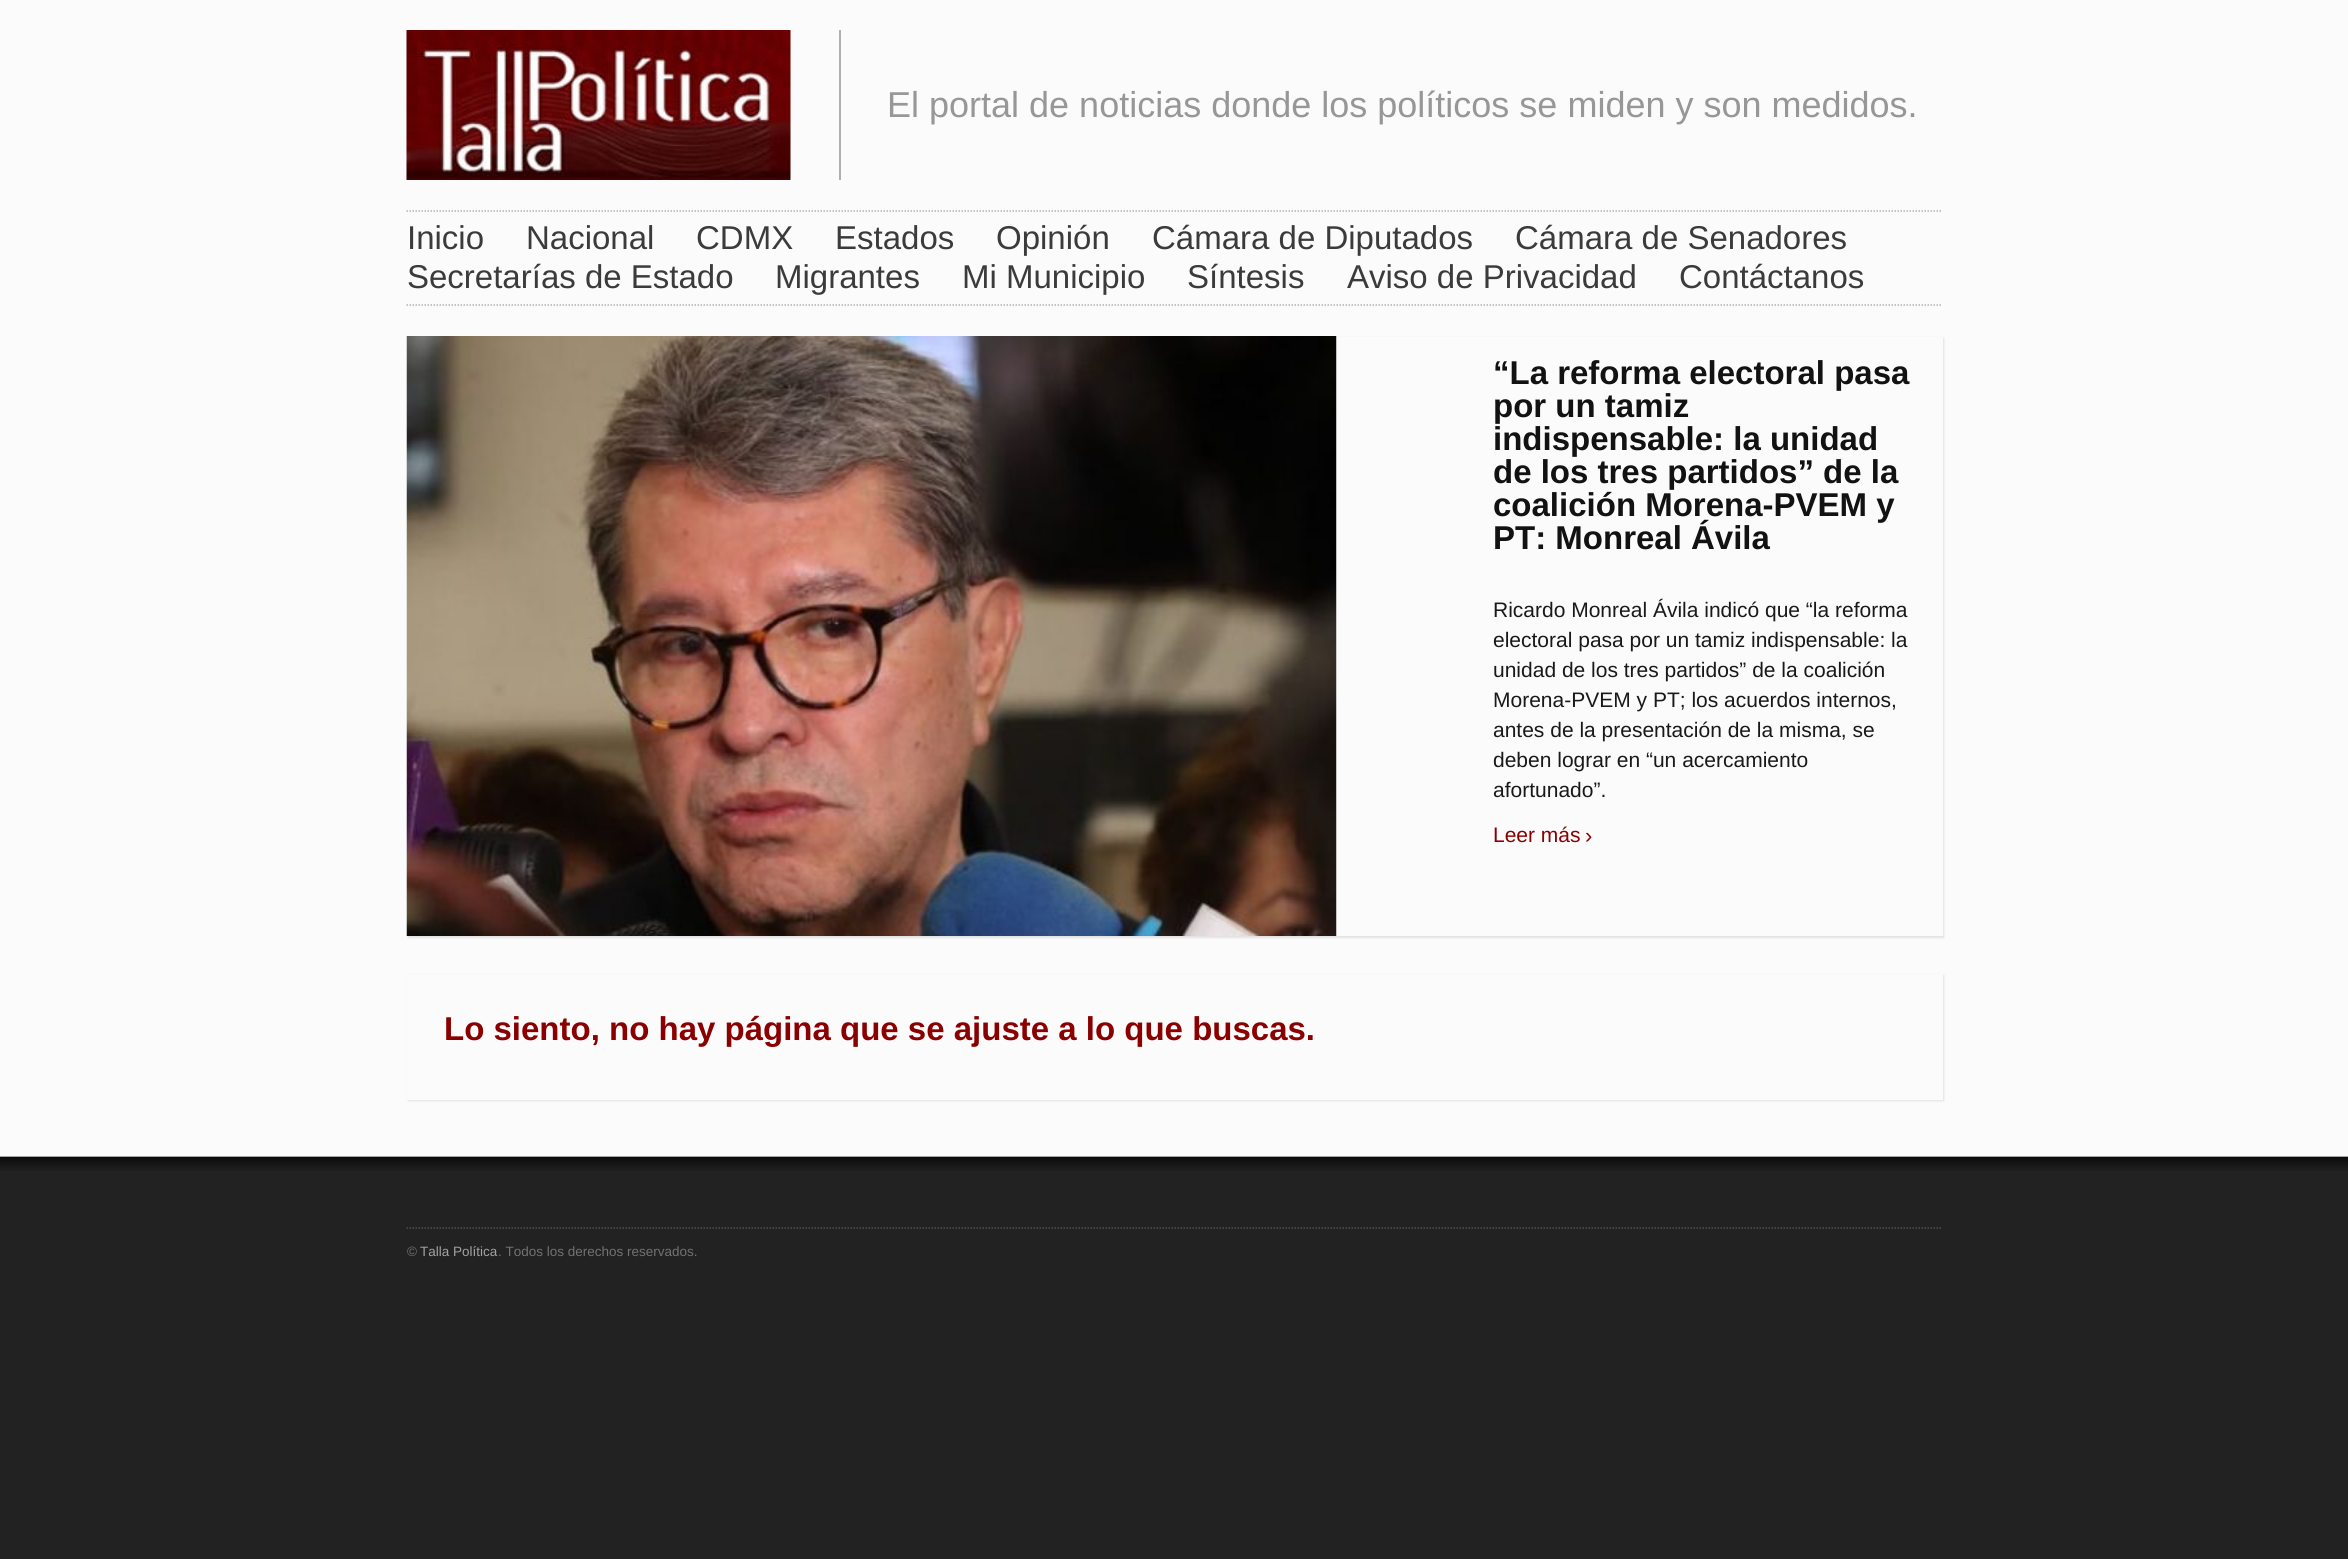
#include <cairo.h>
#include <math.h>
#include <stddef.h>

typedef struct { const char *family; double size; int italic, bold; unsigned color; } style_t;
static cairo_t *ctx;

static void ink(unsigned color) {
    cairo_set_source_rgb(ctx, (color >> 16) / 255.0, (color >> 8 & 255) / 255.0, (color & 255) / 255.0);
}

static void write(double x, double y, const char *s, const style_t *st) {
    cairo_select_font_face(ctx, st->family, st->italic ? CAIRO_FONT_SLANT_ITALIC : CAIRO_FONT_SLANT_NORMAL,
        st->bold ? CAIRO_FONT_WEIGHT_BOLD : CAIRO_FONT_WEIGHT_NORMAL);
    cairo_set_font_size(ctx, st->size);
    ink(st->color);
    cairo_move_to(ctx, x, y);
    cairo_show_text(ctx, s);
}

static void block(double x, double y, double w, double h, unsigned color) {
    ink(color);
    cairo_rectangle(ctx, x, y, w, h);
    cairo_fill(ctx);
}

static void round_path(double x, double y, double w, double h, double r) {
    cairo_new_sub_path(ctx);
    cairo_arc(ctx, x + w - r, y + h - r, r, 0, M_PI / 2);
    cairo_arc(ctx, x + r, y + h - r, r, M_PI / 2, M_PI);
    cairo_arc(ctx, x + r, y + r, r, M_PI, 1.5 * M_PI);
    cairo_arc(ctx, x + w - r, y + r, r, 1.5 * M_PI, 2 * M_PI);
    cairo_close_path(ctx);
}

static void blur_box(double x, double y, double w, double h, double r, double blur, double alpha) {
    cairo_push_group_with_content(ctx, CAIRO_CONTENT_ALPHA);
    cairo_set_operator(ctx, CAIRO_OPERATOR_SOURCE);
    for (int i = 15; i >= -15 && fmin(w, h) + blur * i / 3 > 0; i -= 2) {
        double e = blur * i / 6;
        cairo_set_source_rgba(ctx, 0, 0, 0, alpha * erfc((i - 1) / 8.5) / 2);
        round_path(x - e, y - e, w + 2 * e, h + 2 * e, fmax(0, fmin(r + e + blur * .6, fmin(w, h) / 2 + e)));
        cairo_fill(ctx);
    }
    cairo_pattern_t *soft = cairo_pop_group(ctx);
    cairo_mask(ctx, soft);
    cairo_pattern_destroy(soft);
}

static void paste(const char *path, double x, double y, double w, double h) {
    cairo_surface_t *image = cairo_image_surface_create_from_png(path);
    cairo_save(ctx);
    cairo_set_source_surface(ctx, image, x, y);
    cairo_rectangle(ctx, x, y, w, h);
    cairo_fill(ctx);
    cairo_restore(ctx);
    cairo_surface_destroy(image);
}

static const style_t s1 = {"Liberation Sans", 36, 0, 0, 0x979797};
static const style_t s2 = {"Liberation Sans", 33, 0, 0, 0x3b3b3b};
static const style_t s3 = {"Liberation Sans", 33, 0, 1, 0x121212};
static const style_t s4 = {"Liberation Sans", 21, 0, 0, 0x191919};
static const style_t s5 = {"Liberation Sans", 21, 0, 0, 0x8a0000};
static const style_t s6 = {"Liberation Sans", 22, 0, 0, 0x8a0000};
static const style_t s7 = {"Liberation Sans", 33, 0, 1, 0x8a0000};
static const style_t s8 = {"Liberation Sans", 13.5, 0, 0, 0x727272};
static const style_t s9 = {"Liberation Sans", 13.5, 0, 0, 0xa2a2a2};

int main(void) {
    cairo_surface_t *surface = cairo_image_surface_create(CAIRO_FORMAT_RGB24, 2348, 1559);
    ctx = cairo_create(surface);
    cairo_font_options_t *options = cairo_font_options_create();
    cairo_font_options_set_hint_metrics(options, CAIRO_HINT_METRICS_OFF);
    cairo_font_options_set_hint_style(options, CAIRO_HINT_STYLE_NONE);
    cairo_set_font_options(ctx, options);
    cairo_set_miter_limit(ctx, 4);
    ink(0x222222);
    cairo_paint(ctx);
    block(0, 0, 2348, 1157, 0xfbfbfb);
    paste("pic1.png", 406, 30, 385, 150);
    block(839, 30, 2, 150, 0xafafaf);
    write(887, 117, "El portal de noticias donde los políticos se miden y son medidos.", &s1);
    cairo_new_path(ctx);
    cairo_move_to(ctx, 406.5, 211);
    cairo_line_to(ctx, 1942.5, 211);
    ink(0xb2b2b2);
    cairo_set_line_width(ctx, 1.5);
    cairo_set_dash(ctx, (double[]){1.5, 1.5}, 2, 0);
    cairo_stroke(ctx);
    cairo_new_path(ctx);
    cairo_move_to(ctx, 406.5, 305);
    cairo_line_to(ctx, 1942.5, 305);
    cairo_stroke(ctx);
    write(407, 249, "Inicio", &s2);
    write(526, 249, "Nacional", &s2);
    write(696, 249, "CDMX", &s2);
    write(835, 249, "Estados", &s2);
    write(996, 249, "Opinión", &s2);
    write(1152, 249, "Cámara de Diputados", &s2);
    write(1515, 249, "Cámara de Senadores", &s2);
    write(407, 288, "Secretarías de Estado", &s2);
    write(775, 288, "Migrantes", &s2);
    write(962, 288, "Mi Municipio", &s2);
    write(1187, 288, "Síntesis", &s2);
    write(1347, 288, "Aviso de Privacidad", &s2);
    write(1679, 288, "Contáctanos", &s2);
    ink(0x000000);
    blur_box(408, 338, 1536, 600, 0, 1, 0.1);
    block(1337, 337, 606, 599, 0xfbfbfb);
    block(1336, 336, 1, 600, 0xffffff);
    paste("pic2.png", 406, 336, 931, 600);
    write(1493, 384, "“La reforma electoral pasa", &s3);
    write(1493, 417, "por un tamiz", &s3);
    write(1493, 450, "indispensable: la unidad", &s3);
    write(1493, 483, "de los tres partidos” de la", &s3);
    write(1493, 516, "coalición Morena-PVEM y", &s3);
    write(1493, 549, "PT: Monreal Ávila", &s3);
    write(1493, 617, "Ricardo Monreal Ávila indicó que “la reforma", &s4);
    write(1493, 647, "electoral pasa por un tamiz indispensable: la", &s4);
    write(1493, 677, "unidad de los tres partidos” de la coalición", &s4);
    write(1493, 707, "Morena-PVEM y PT; los acuerdos internos,", &s4);
    write(1493, 737, "antes de la presentación de la misma, se", &s4);
    write(1493, 767, "deben lograr en “un acercamiento", &s4);
    write(1493, 797, "afortunado”.", &s4);
    write(1493, 842, "Leer más", &s5);
    write(1585, 843, "›", &s6);
    ink(0x000000);
    blur_box(408, 975, 1536, 126, 0, 1, 0.1);
    block(407, 974, 1536, 126, 0xfbfbfb);
    write(444, 1040, "Lo siento, no hay página que se ajuste a lo que buscas.", &s7);
    paste("pic3.png", 0, 1156, 2348, 15);
    cairo_new_path(ctx);
    cairo_move_to(ctx, 406.5, 1228);
    cairo_line_to(ctx, 1942.5, 1228);
    ink(0x505050);
    cairo_stroke(ctx);
    write(407, 1256, "©", &s8);
    write(420, 1256, "Talla Política", &s9);
    write(498, 1256, ". Todos los derechos reservados.", &s8);
    cairo_surface_write_to_png(surface, "screenshot.png");
    cairo_font_options_destroy(options);
    cairo_destroy(ctx);
    cairo_surface_destroy(surface);
    return 0;
}
